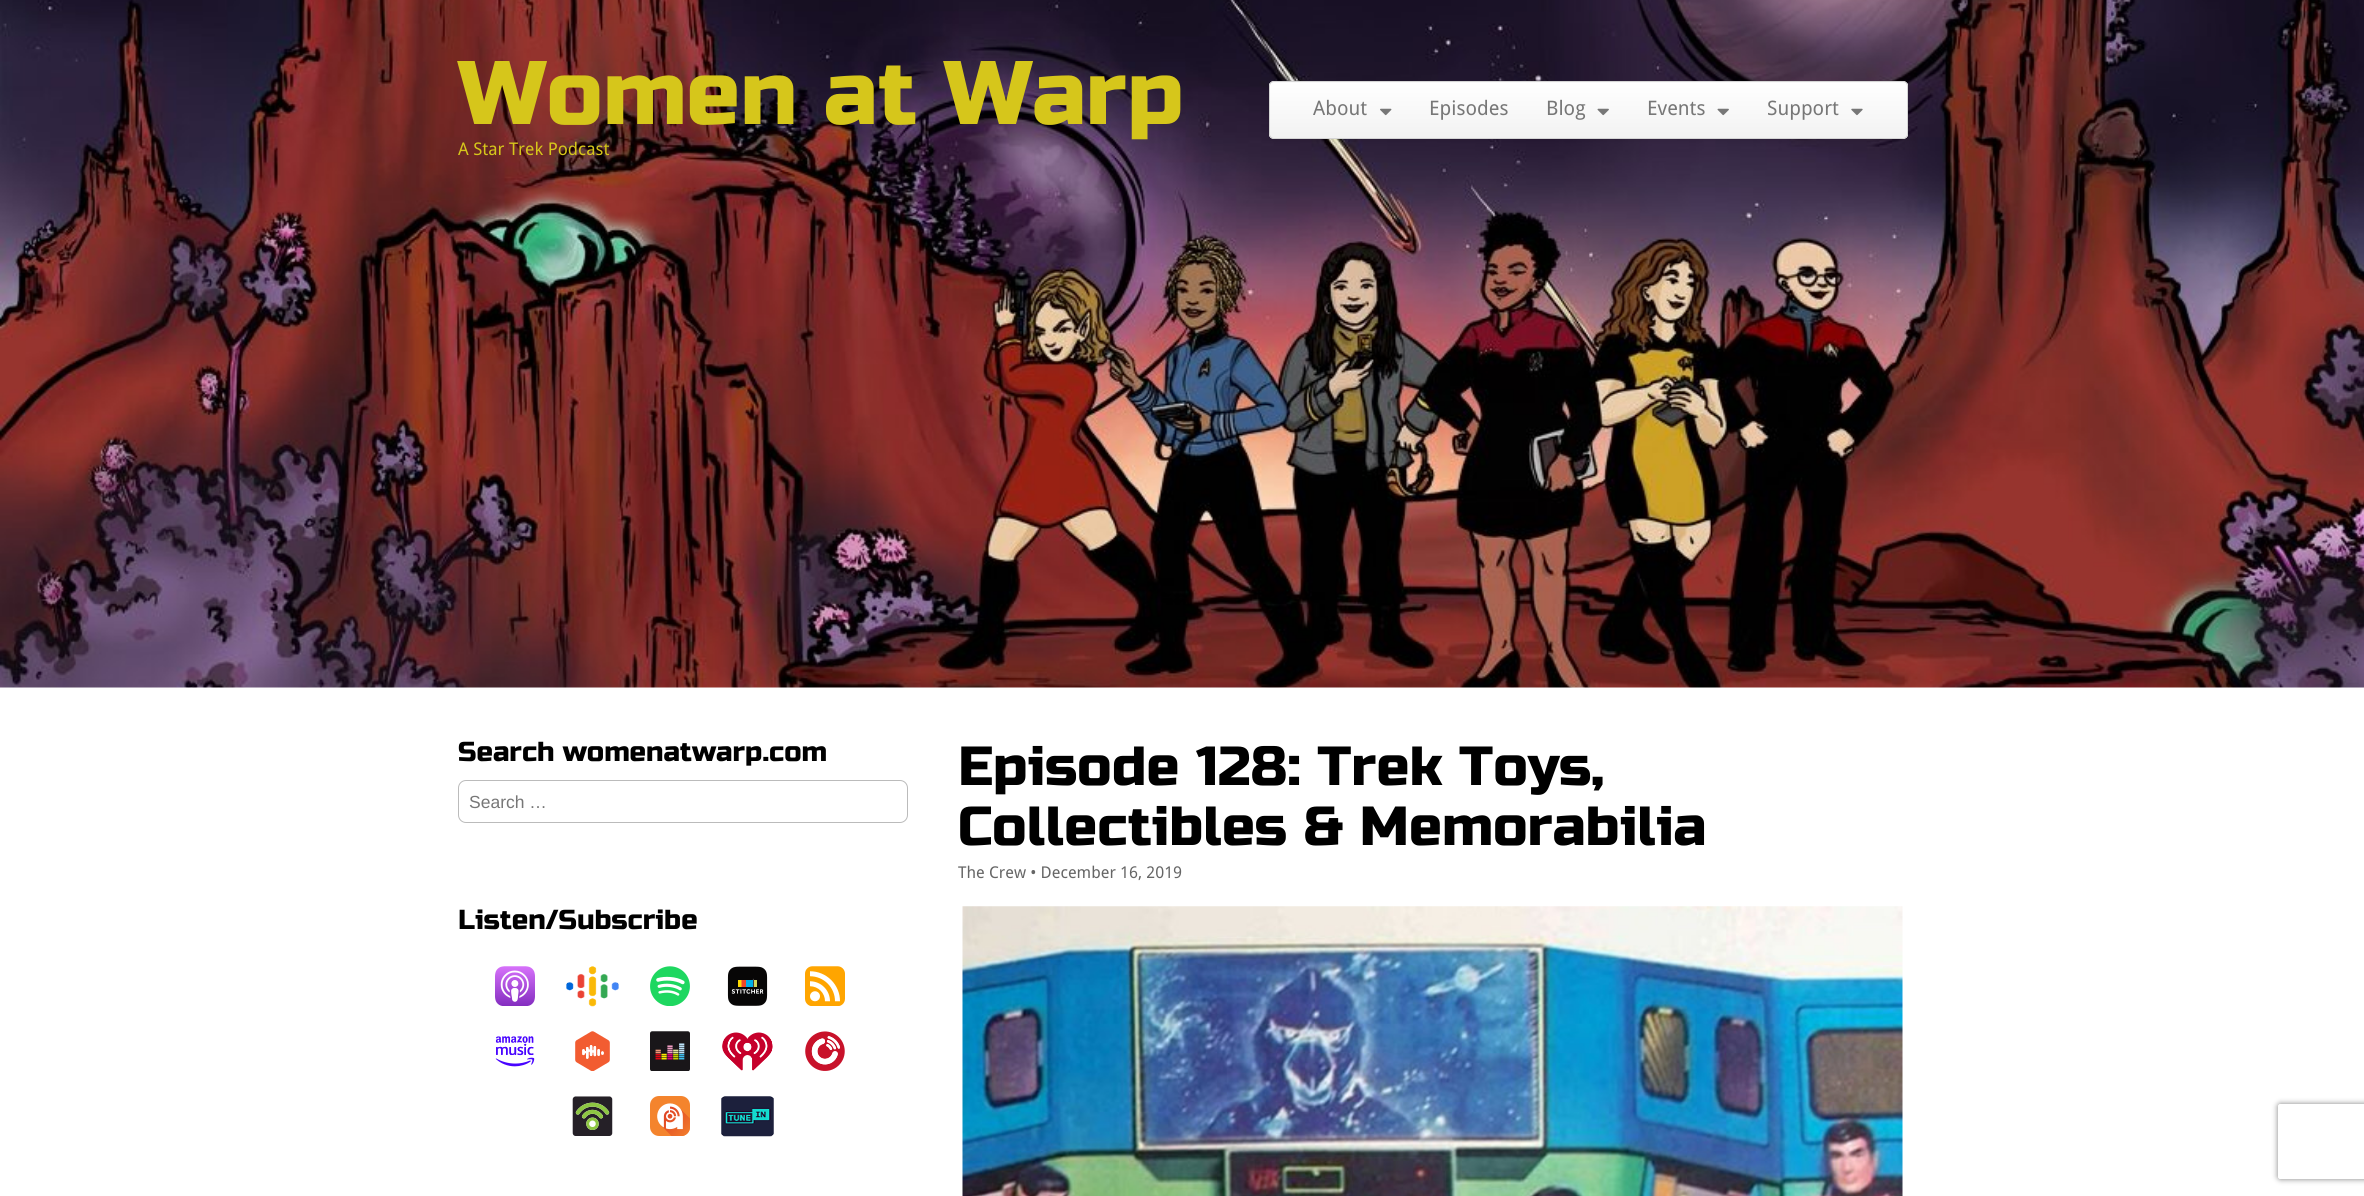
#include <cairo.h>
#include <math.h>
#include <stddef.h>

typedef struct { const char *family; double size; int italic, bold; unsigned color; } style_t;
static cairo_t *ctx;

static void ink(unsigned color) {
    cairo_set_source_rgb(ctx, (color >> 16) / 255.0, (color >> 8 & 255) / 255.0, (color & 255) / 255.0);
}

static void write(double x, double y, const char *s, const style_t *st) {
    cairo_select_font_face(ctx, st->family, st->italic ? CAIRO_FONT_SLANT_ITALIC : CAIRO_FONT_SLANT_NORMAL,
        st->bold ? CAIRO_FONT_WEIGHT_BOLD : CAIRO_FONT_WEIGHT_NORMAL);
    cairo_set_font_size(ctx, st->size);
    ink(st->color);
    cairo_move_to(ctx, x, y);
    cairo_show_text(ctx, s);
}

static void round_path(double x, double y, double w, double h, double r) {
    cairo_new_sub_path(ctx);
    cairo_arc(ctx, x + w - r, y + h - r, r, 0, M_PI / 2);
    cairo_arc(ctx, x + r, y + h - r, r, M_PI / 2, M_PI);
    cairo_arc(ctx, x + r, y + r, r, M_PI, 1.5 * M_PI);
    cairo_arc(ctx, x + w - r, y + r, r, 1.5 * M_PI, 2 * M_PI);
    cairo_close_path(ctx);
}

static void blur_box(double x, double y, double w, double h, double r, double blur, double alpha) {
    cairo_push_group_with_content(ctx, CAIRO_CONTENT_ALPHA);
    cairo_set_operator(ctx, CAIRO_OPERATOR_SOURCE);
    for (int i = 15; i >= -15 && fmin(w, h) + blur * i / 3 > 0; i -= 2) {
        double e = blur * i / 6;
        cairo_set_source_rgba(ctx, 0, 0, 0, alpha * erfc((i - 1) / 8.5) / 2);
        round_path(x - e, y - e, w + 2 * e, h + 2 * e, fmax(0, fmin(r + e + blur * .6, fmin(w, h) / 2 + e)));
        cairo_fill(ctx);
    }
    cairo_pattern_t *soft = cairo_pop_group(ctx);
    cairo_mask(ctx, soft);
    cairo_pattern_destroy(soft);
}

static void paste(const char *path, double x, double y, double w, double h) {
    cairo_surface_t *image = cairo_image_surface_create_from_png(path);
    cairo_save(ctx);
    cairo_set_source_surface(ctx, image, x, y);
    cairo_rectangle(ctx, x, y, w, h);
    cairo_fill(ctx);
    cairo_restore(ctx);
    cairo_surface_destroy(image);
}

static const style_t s1 = {"Russo One", 90, 0, 0, 0xd6c61b};
static const style_t s2 = {"Droid Sans", 17.5, 0, 0, 0xd6c61b};
static const style_t s3 = {"Droid Sans", 20, 0, 0, 0x777777};
static const style_t s4 = {"Russo One", 27.5, 0, 0, 0x000000};
static const style_t s5 = {"Liberation Sans", 17.5, 0, 0, 0x777777};
static const style_t s6 = {"Russo One", 55, 0, 0, 0x000000};
static const style_t s7 = {"Droid Sans", 16.25, 0, 0, 0x666666};

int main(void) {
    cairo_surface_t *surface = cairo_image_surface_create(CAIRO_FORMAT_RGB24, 2364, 1196);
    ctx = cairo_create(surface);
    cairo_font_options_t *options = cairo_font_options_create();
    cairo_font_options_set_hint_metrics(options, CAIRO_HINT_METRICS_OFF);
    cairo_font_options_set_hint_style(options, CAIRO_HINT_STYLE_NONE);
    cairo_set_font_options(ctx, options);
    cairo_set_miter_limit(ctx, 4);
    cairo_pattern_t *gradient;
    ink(0xffffff);
    cairo_paint(ctx);
    paste("pic1.png", 0, 0, 2364, 688);
    write(458, 124, "Women at Warp", &s1);
    write(458, 155, "A Star Trek Podcast", &s2);
    ink(0x000000);
    blur_box(1269, 83, 639, 57, 5, 2.5, 0.07);
    ink(0xfafafa);
    round_path(1269, 81, 639, 58, 5);
    cairo_fill(ctx);
    cairo_save(ctx);
    round_path(1269, 81, 639, 58, 5);
    cairo_clip(ctx);
    gradient = cairo_pattern_create_linear(1588, 82, 1588, 138);
    cairo_pattern_add_color_stop_rgba(gradient, 0, 1, 1, 1, 1);
    cairo_pattern_add_color_stop_rgba(gradient, 1, 0.949, 0.949, 0.949, 1);
    cairo_set_source(ctx, gradient);
    cairo_pattern_destroy(gradient);
    cairo_rectangle(ctx, 1269, 83, 639, 55);
    cairo_fill(ctx);
    cairo_restore(ctx);
    round_path(1269.5, 81.5, 638, 57, 4.5);
    ink(0xd4d4d4);
    cairo_set_line_width(ctx, 1);
    cairo_stroke(ctx);
    write(1313, 115, "About", &s3);
    paste("pic2.png", 1380, 108, 12, 8);
    write(1429, 115, "Episodes", &s3);
    write(1546, 115, "Blog", &s3);
    paste("pic3.png", 1597, 108, 12, 8);
    write(1647, 115, "Events", &s3);
    paste("pic3.png", 1717, 108, 12, 8);
    write(1767, 115, "Support", &s3);
    paste("pic4.png", 1851, 108, 12, 8);
    write(458, 761, "Search womenatwarp.com", &s4);
    round_path(458.5, 780.5, 449, 42, 7.5);
    ink(0xbbbbbb);
    cairo_stroke(ctx);
    write(469, 808, "Search …", &s5);
    write(458, 929, "Listen/Subscribe", &s4);
    paste("pic5.png", 495, 966, 40, 40);
    paste("pic6.png", 566, 966, 53, 41);
    paste("pic7.png", 650, 966, 40, 40);
    paste("pic8.png", 727, 966, 41, 40);
    paste("pic9.png", 805, 966, 40, 40);
    paste("pic10.png", 495, 1036, 40, 31);
    paste("pic11.png", 575, 1031, 35, 40);
    paste("pic12.png", 650, 1031, 40, 40);
    paste("pic13.png", 722, 1032, 51, 39);
    paste("pic14.png", 805, 1031, 40, 40);
    paste("pic15.png", 572, 1096, 41, 40);
    paste("pic16.png", 650, 1096, 40, 40);
    paste("pic17.png", 721, 1096, 53, 41);
    write(958, 785, "Episode 128: Trek Toys,", &s6);
    write(958, 845, "Collectibles & Memorabilia", &s6);
    write(958, 878, "The Crew • December 16, 2019", &s7);
    paste("pic18.png", 962, 906, 941, 290);
    cairo_save(ctx);
    cairo_set_fill_rule(ctx, CAIRO_FILL_RULE_EVEN_ODD);
    cairo_new_path(ctx);
    cairo_move_to(ctx, 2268, 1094);
    cairo_line_to(ctx, 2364, 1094);
    cairo_line_to(ctx, 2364, 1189);
    cairo_line_to(ctx, 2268, 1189);
    cairo_close_path(ctx);
    cairo_move_to(ctx, 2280.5, 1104);
    cairo_line_to(ctx, 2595.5, 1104);
    cairo_curve_to(ctx, 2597, 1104, 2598, 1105, 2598, 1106.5);
    cairo_line_to(ctx, 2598, 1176.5);
    cairo_curve_to(ctx, 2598, 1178, 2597, 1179, 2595.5, 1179);
    cairo_line_to(ctx, 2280.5, 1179);
    cairo_curve_to(ctx, 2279, 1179, 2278, 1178, 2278, 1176.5);
    cairo_line_to(ctx, 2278, 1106.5);
    cairo_curve_to(ctx, 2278, 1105, 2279, 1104, 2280.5, 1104);
    cairo_close_path(ctx);
    cairo_clip(ctx);
    ink(0x808080);
    blur_box(2278, 1104, 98, 75, 2.5, 3, 1);
    cairo_restore(ctx);
    cairo_surface_write_to_png(surface, "screenshot.png");
    cairo_font_options_destroy(options);
    cairo_destroy(ctx);
    cairo_surface_destroy(surface);
    return 0;
}
